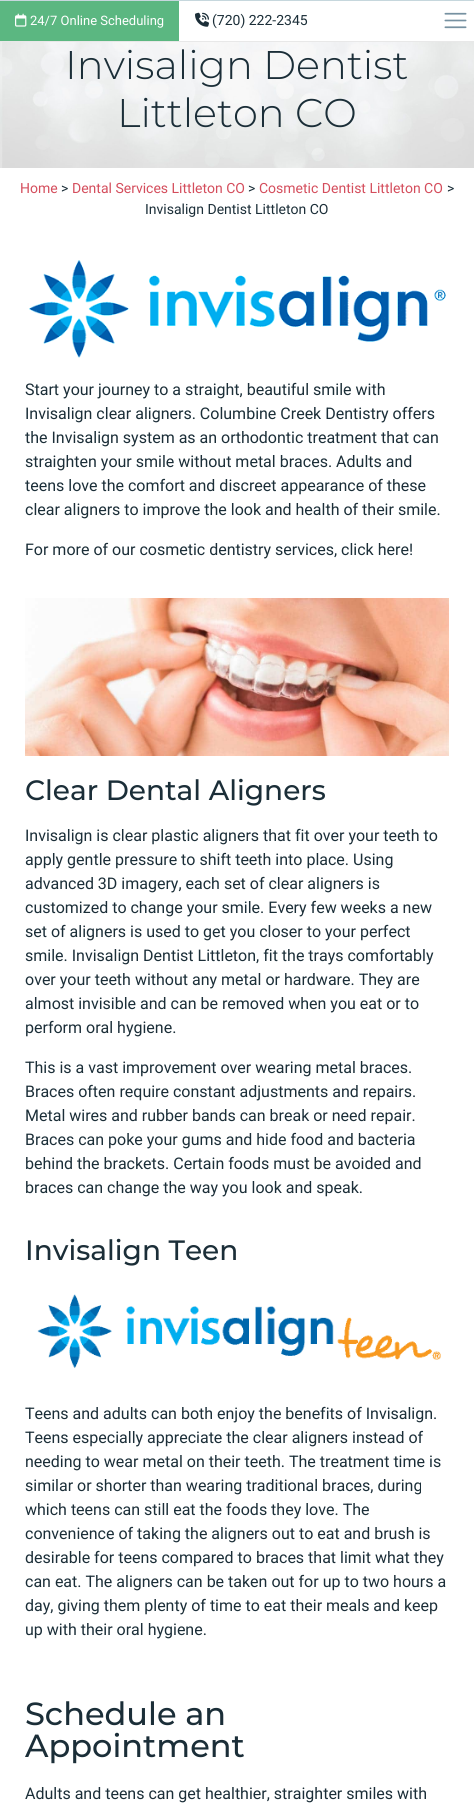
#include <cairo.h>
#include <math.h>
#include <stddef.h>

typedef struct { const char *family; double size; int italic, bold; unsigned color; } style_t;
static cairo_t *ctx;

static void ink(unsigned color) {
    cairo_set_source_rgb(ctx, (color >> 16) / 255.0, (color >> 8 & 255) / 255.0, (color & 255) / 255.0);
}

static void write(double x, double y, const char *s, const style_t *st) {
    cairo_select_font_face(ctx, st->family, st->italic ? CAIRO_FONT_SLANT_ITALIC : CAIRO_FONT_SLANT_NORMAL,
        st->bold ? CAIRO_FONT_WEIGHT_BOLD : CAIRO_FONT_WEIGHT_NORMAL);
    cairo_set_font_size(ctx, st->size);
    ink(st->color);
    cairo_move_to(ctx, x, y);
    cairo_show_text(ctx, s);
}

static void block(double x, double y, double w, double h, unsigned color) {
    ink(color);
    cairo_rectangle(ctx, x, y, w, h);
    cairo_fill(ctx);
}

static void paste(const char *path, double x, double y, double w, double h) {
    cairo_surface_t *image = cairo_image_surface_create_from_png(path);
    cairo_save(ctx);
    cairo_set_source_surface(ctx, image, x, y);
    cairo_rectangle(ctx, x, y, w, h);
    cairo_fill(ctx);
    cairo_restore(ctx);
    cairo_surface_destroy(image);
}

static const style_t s1 = {"Roboto", 13, 0, 0, 0xffffff};
static const style_t s2 = {"Roboto", 14, 0, 0, 0x1b2e38};
static const style_t s3 = {"Montserrat Light", 40, 0, 0, 0x1b2e38};
static const style_t s4 = {"Roboto", 14, 0, 0, 0xd44d5c};
static const style_t s5 = {"Roboto", 16, 0, 0, 0x1b2e38};
static const style_t s6 = {"Montserrat Medium", 28, 0, 0, 0x1b2e38};
static const style_t s7 = {"Montserrat Medium", 32, 0, 0, 0x1b2e38};

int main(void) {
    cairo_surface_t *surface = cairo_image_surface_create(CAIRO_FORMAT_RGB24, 474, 1812);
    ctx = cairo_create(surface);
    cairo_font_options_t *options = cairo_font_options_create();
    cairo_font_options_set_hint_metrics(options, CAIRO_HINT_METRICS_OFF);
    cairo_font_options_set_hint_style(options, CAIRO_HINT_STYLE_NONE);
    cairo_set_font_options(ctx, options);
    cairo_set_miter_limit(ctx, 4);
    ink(0xffffff);
    cairo_paint(ctx);
    block(0, 0, 474, 1, 0xc6d7dd);
    block(0, 41, 474, 1, 0xe8e8e8);
    block(0, 1, 179, 40, 0x5bb781);
    paste("pic1.png", 15, 13, 12, 14);
    write(30, 25, "24/7 Online Scheduling", &s1);
    paste("pic2.png", 195, 12, 14, 15);
    write(212, 25, "(720) 222-2345", &s2);
    paste("pic3.png", 444, 12, 23, 17);
    paste("pic4.png", 0, 42, 474, 126);
    write(65, 79, "Invisalign Dentist", &s3);
    write(117, 127, "Littleton CO", &s3);
    write(20, 193, "Home", &s4);
    write(61, 193, ">", &s2);
    write(72, 193, "Dental Services Littleton CO", &s4);
    write(248, 193, ">", &s2);
    write(259, 193, "Cosmetic Dentist Littleton CO", &s4);
    write(447, 193, ">", &s2);
    write(145, 214, "Invisalign Dentist Littleton CO", &s2);
    paste("pic5.png", 29, 260, 417, 98);
    write(25, 395, "Start your journey to a straight, beautiful smile with", &s5);
    write(25, 419, "Invisalign clear aligners. Columbine Creek Dentistry offers", &s5);
    write(25, 443, "the Invisalign system as an orthodontic treatment that can", &s5);
    write(25, 467, "straighten your smile without metal braces. Adults and", &s5);
    write(25, 491, "teens love the comfort and discreet appearance of these", &s5);
    write(25, 515, "clear aligners to improve the look and health of their smile.", &s5);
    write(25, 555, "For more of our cosmetic dentistry services, click here!", &s5);
    paste("pic6.png", 25, 598, 424, 158);
    write(25, 800, "Clear Dental Aligners", &s6);
    write(25, 841, "Invisalign is clear plastic aligners that fit over your teeth to", &s5);
    write(25, 865, "apply gentle pressure to shift teeth into place. Using", &s5);
    write(25, 889, "advanced 3D imagery, each set of clear aligners is", &s5);
    write(25, 913, "customized to change your smile. Every few weeks a new", &s5);
    write(25, 937, "set of aligners is used to get you closer to your perfect", &s5);
    write(25, 961, "smile. Invisalign Dentist Littleton, fit the trays comfortably", &s5);
    write(25, 985, "over your teeth without any metal or hardware. They are", &s5);
    write(25, 1009, "almost invisible and can be removed when you eat or to", &s5);
    write(25, 1033, "perform oral hygiene.", &s5);
    write(25, 1073, "This is a vast improvement over wearing metal braces.", &s5);
    write(25, 1097, "Braces often require constant adjustments and repairs.", &s5);
    write(25, 1121, "Metal wires and rubber bands can break or need repair.", &s5);
    write(25, 1145, "Braces can poke your gums and hide food and bacteria", &s5);
    write(25, 1169, "behind the brackets. Certain foods must be avoided and", &s5);
    write(25, 1193, "braces can change the way you look and speak.", &s5);
    write(25, 1260, "Invisalign Teen", &s6);
    paste("pic7.png", 37, 1294, 404, 75);
    write(25, 1419, "Teens and adults can both enjoy the benefits of Invisalign.", &s5);
    write(25, 1443, "Teens especially appreciate the clear aligners instead of", &s5);
    write(25, 1467, "needing to wear metal on their teeth. The treatment time is", &s5);
    write(25, 1491, "similar or shorter than wearing traditional braces, during", &s5);
    write(25, 1515, "which teens can still eat the foods they love. The", &s5);
    write(25, 1539, "convenience of taking the aligners out to eat and brush is", &s5);
    write(25, 1563, "desirable for teens compared to braces that limit what they", &s5);
    write(25, 1587, "can eat. The aligners can be taken out for up to two hours a", &s5);
    write(25, 1611, "day, giving them plenty of time to eat their meals and keep", &s5);
    write(25, 1635, "up with their oral hygiene.", &s5);
    write(25, 1725, "Schedule an", &s7);
    write(25, 1757, "Appointment", &s7);
    write(25, 1799, "Adults and teens can get healthier, straighter smiles with", &s5);
    cairo_surface_write_to_png(surface, "screenshot.png");
    cairo_font_options_destroy(options);
    cairo_destroy(ctx);
    cairo_surface_destroy(surface);
    return 0;
}
